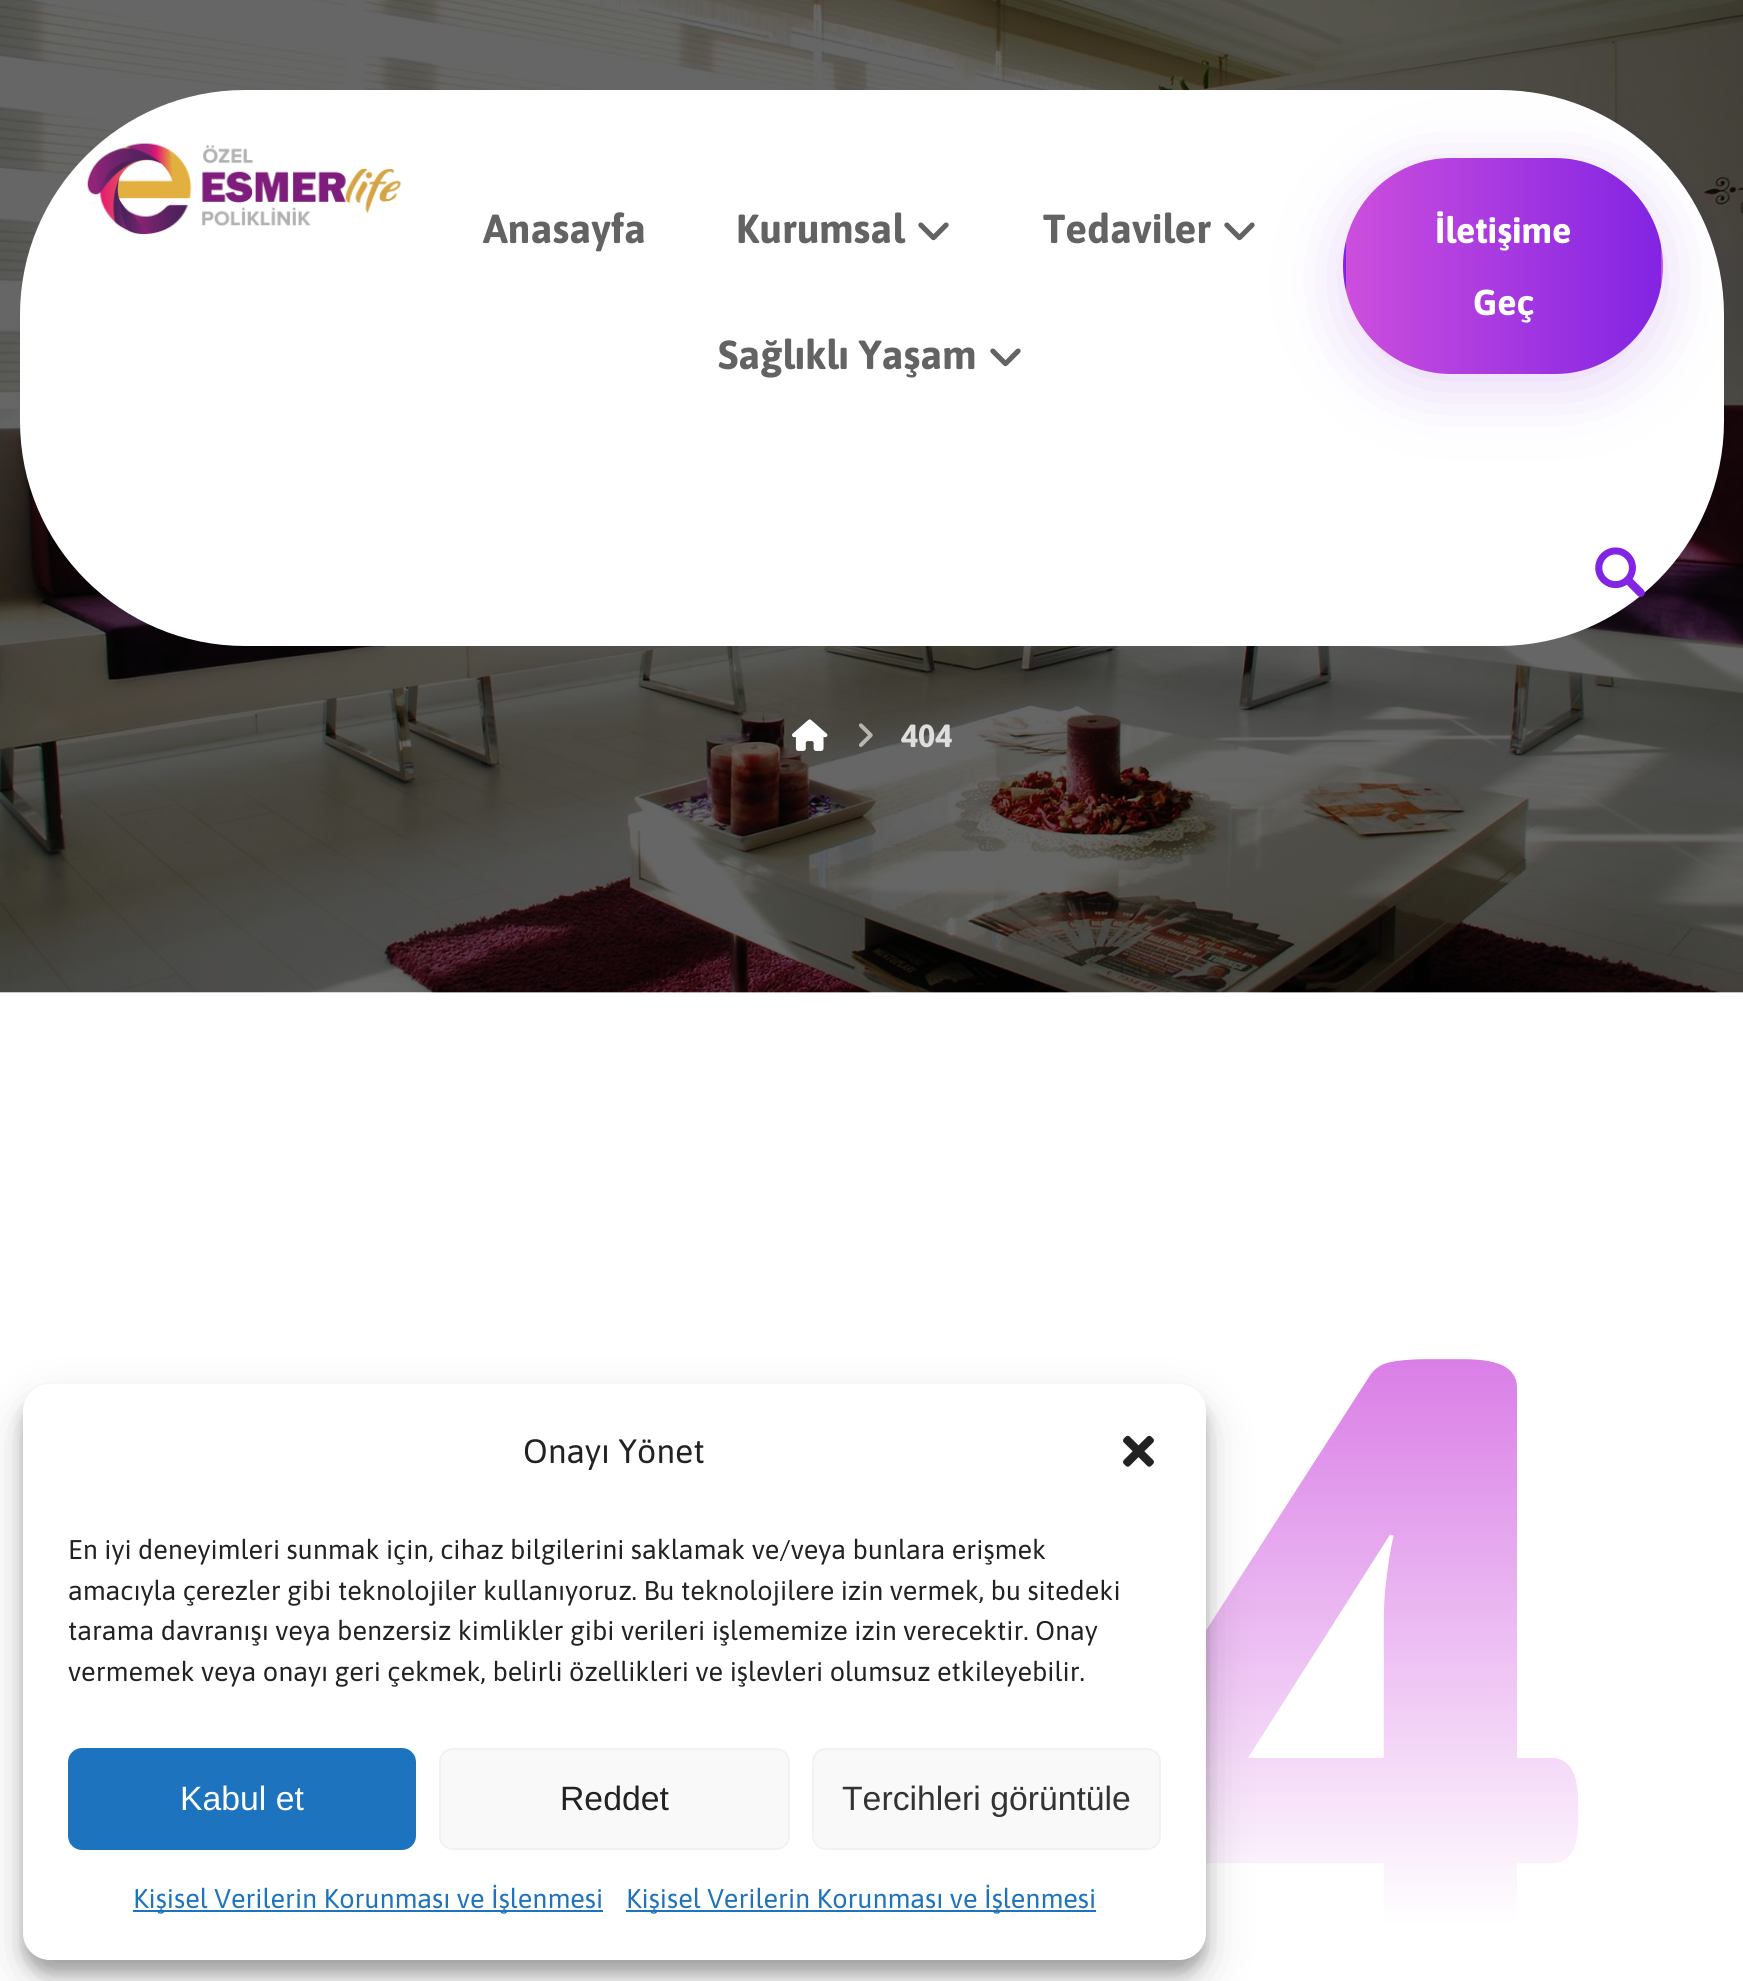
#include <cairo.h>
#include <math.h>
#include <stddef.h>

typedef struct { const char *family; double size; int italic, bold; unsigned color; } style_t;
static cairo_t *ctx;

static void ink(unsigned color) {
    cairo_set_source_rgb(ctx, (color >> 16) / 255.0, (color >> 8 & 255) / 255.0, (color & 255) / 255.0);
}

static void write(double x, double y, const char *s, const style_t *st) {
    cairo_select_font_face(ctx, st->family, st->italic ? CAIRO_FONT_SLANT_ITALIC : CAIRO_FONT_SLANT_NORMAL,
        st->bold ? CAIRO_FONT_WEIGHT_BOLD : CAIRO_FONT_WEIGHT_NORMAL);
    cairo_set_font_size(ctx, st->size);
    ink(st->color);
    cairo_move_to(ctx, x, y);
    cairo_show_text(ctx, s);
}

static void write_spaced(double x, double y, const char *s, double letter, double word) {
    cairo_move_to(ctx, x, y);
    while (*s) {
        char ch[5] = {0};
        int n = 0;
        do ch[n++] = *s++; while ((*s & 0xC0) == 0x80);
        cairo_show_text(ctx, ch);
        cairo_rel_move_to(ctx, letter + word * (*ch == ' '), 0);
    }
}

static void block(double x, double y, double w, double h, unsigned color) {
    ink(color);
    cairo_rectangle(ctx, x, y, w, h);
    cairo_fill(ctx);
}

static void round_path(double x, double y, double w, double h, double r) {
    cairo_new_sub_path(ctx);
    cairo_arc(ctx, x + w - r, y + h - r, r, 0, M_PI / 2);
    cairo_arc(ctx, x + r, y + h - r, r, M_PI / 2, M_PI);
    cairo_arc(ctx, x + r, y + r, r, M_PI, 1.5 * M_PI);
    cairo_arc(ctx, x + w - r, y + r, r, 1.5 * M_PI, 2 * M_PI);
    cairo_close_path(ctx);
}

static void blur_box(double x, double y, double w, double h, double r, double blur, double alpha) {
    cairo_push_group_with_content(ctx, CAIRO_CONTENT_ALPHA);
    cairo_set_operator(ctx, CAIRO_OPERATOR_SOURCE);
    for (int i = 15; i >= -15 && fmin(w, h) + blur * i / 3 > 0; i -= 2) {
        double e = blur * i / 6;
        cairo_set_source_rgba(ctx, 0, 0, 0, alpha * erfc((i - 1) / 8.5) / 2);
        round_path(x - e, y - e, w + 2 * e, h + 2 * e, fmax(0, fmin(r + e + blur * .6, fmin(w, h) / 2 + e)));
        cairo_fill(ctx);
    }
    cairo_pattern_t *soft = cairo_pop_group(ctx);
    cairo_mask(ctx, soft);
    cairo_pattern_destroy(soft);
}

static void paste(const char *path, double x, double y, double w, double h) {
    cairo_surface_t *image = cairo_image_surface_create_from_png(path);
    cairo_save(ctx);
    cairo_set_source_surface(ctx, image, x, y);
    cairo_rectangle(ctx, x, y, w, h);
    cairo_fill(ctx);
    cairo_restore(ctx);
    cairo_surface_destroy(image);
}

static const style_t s1 = {"Asap", 40.5, 0, 1, 0x636363};
static const style_t s2 = {"Asap", 36, 0, 1, 0xffffff};
static const style_t s3 = {"Asap", 32, 0, 1, 0xdededd};
static const style_t s4 = {"Asap", 33.75, 0, 0, 0x222222};
static const style_t s5 = {"Asap", 27, 0, 0, 0x222222};
static const style_t s6 = {"Liberation Sans", 33.75, 0, 0, 0xffffff};
static const style_t s7 = {"Liberation Sans", 33.75, 0, 0, 0x222222};
static const style_t s8 = {"Liberation Sans", 33.75, 0, 0, 0x333333};
static const style_t s9 = {"Asap", 27, 0, 0, 0x1e73be};

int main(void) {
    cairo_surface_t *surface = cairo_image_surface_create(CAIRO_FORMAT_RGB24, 1743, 1981);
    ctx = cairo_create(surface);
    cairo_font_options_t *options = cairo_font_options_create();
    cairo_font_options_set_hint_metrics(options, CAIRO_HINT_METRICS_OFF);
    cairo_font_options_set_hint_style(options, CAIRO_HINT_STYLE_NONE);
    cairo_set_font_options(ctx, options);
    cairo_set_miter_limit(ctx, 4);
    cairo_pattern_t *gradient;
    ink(0xffffff);
    cairo_paint(ctx);
    paste("pic4.png", 0, 0, 1743, 993);
    ink(0xffffff);
    round_path(20, 90, 1704, 556, 225);
    cairo_fill(ctx);
    paste("pic1.png", 87, 143, 314, 91);
    write(483, 243, "Anasayfa", &s1);
    write(736, 243, "Kurumsal", &s1);
    paste("pic2.png", 918, 222, 31, 19);
    write(1043, 243, "Tedaviler", &s1);
    paste("pic2.png", 1224, 222, 31, 19);
    write(718, 369, "Sağlıklı Yaşam", &s1);
    paste("pic2.png", 990, 348, 31, 19);
    ink(0x8224e3);
    blur_box(1343, 171, 320, 216, 108, 34, 0.2);
    cairo_save(ctx);
    round_path(1343, 158, 320, 216, 108);
    cairo_clip(ctx);
    gradient = cairo_pattern_create_linear(1031, 266, 1346, 266);
    cairo_pattern_add_color_stop_rgba(gradient, 0, 0.8, 0.306, 0.867, 1);
    cairo_pattern_add_color_stop_rgba(gradient, 1, 0.51, 0.141, 0.89, 1);
    cairo_set_source(ctx, gradient);
    cairo_pattern_destroy(gradient);
    cairo_rectangle(ctx, 1343, 241, 3, 50);
    cairo_fill(ctx);
    gradient = cairo_pattern_create_linear(1346, 266, 1661, 266);
    cairo_pattern_add_color_stop_rgba(gradient, 0, 0.8, 0.306, 0.867, 1);
    cairo_pattern_add_color_stop_rgba(gradient, 1, 0.51, 0.141, 0.89, 1);
    cairo_set_source(ctx, gradient);
    cairo_pattern_destroy(gradient);
    cairo_rectangle(ctx, 1346, 158, 315, 216);
    cairo_fill(ctx);
    gradient = cairo_pattern_create_linear(1661, 266, 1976, 266);
    cairo_pattern_add_color_stop_rgba(gradient, 0, 0.8, 0.306, 0.867, 1);
    cairo_pattern_add_color_stop_rgba(gradient, 1, 0.51, 0.141, 0.89, 1);
    cairo_set_source(ctx, gradient);
    cairo_pattern_destroy(gradient);
    cairo_rectangle(ctx, 1661, 245, 2, 42);
    cairo_fill(ctx);
    cairo_restore(ctx);
    write(1435, 243, "İletişime", &s2);
    write(1473, 315, "Geç", &s2);
    paste("pic3.png", 1595, 547, 50, 50);
    paste("pic5.png", 792, 719, 36, 32);
    paste("pic6.png", 859, 723, 14, 24);
    write(901, 747, "404", &s3);
    cairo_set_font_size(ctx, 900);
    gradient = cairo_pattern_create_linear(872, 1150, 872, 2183);
    cairo_pattern_add_color_stop_rgba(gradient, 0, 0.8, 0.306, 0.867, 1);
    cairo_pattern_add_color_stop_rgba(gradient, 0.75, 1, 1, 1, 1);
    cairo_set_source(ctx, gradient);
    cairo_pattern_destroy(gradient);
    write_spaced(1112, 1991, "4", -1, 0);
    ink(0x000000);
    blur_box(23, 1397, 1183, 576, 27, 7, 0.23);
    blur_box(23, 1406, 1183, 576, 27, 22.5, 0.19);
    ink(0xffffff);
    round_path(23, 1384, 1183, 576, 27);
    cairo_fill(ctx);
    write(523, 1463, "Onayı Yönet", &s4);
    paste("pic7.png", 1123, 1435, 31, 32);
    write(68, 1559, "En iyi deneyimleri sunmak için, cihaz bilgilerini saklamak ve/veya bunlara erişmek", &s5);
    write(68, 1600, "amacıyla çerezler gibi teknolojiler kullanıyoruz. Bu teknolojilere izin vermek, bu sitedeki", &s5);
    write(68, 1640, "tarama davranışı veya benzersiz kimlikler gibi verileri işlememize izin verecektir. Onay", &s5);
    write(68, 1681, "vermemek veya onayı geri çekmek, belirli özellikleri ve işlevleri olumsuz etkileyebilir.", &s5);
    ink(0x1e73be);
    round_path(69, 1749, 346, 100, 13);
    cairo_fill_preserve(ctx);
    cairo_stroke(ctx);
    write(180, 1810, "Kabul et", &s6);
    ink(0xf9f9f9);
    round_path(440, 1749, 349, 100, 13);
    cairo_fill_preserve(ctx);
    ink(0xf2f2f2);
    cairo_stroke(ctx);
    write(560, 1810, "Reddet", &s7);
    ink(0xf9f9f9);
    round_path(813, 1749, 347, 100, 13);
    cairo_fill_preserve(ctx);
    ink(0xf2f2f2);
    cairo_stroke(ctx);
    write(842, 1810, "Tercihleri görüntüle", &s8);
    block(133, 1910, 470, 2, 0x1e73be);
    write(133, 1908, "Kişisel Verilerin Korunması ve İşlenmesi", &s9);
    block(626, 1910, 470, 2, 0x1e73be);
    write(626, 1908, "Kişisel Verilerin Korunması ve İşlenmesi", &s9);
    cairo_surface_write_to_png(surface, "screenshot.png");
    cairo_font_options_destroy(options);
    cairo_destroy(ctx);
    cairo_surface_destroy(surface);
    return 0;
}
